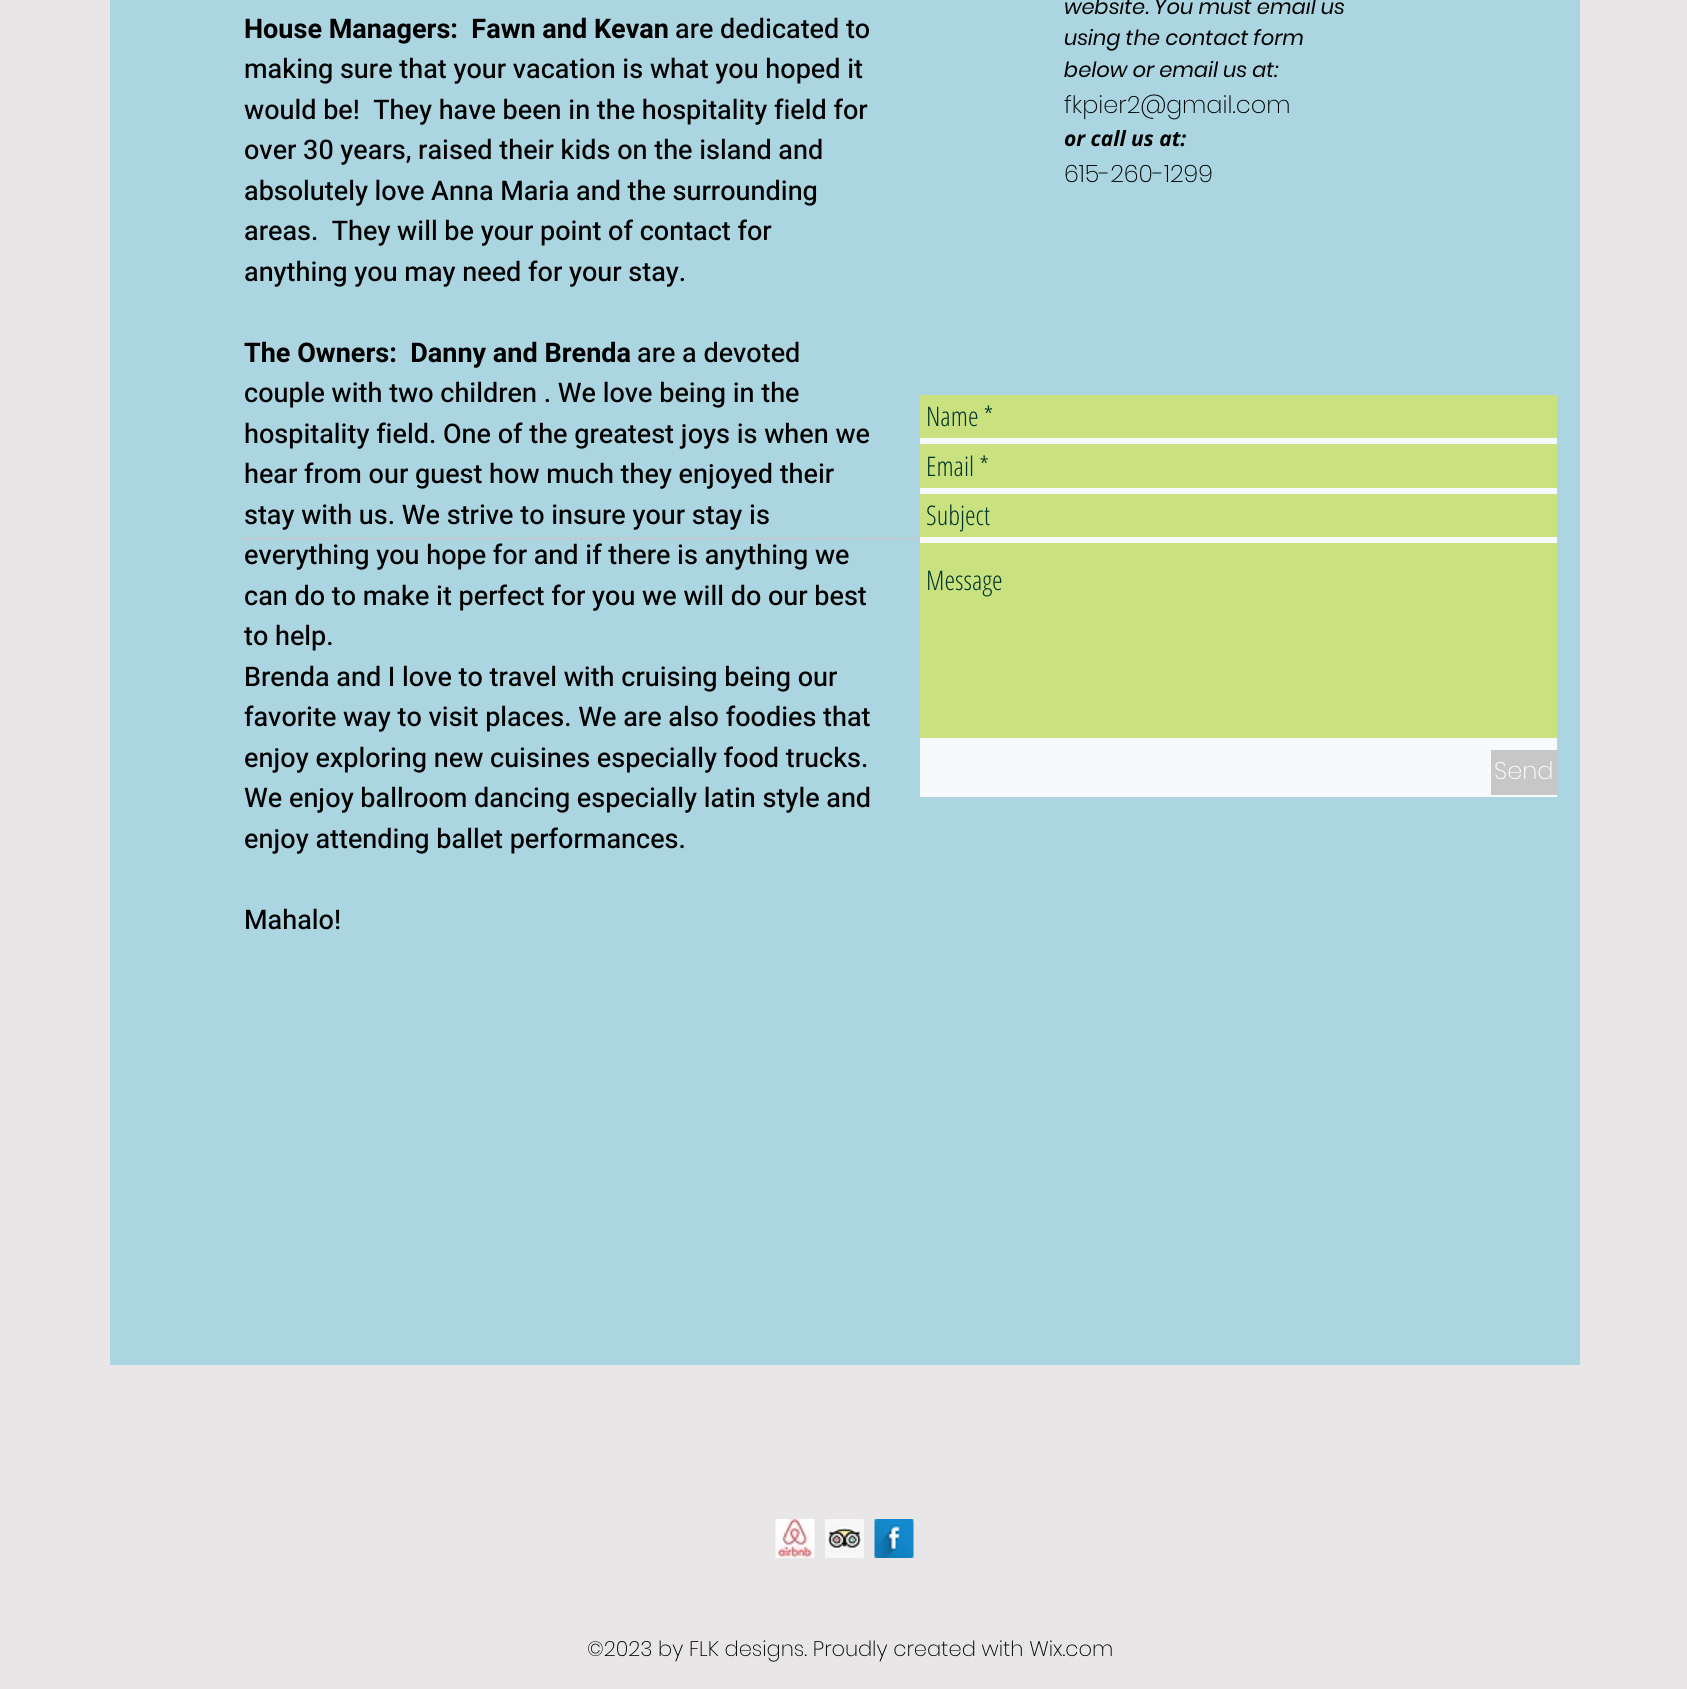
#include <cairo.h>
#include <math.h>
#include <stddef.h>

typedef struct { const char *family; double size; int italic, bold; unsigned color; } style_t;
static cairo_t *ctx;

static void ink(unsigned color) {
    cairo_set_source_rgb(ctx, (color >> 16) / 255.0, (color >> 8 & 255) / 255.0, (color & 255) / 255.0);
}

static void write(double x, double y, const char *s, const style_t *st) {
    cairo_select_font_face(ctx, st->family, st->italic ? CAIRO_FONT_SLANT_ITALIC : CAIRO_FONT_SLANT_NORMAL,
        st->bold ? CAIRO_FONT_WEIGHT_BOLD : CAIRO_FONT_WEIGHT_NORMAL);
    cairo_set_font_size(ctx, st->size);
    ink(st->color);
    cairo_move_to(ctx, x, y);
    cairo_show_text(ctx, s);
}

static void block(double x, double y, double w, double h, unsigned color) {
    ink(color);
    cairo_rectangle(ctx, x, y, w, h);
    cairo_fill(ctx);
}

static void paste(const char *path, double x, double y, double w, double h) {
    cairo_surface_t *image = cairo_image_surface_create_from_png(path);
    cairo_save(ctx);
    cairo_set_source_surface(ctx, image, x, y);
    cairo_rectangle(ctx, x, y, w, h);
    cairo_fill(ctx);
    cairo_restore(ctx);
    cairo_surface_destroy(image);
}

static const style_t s1 = {"Heebo", 27, 0, 1, 0x000000};
static const style_t s2 = {"Heebo Medium", 27, 0, 0, 0x000000};
static const style_t s3 = {"Poppins", 21, 1, 0, 0x000000};
static const style_t s4 = {"Poppins ExtraLight", 24, 0, 0, 0x000000};
static const style_t s5 = {"Open Sans", 21, 1, 1, 0x000000};
static const style_t s6 = {"Open Sans Condensed Light", 27, 0, 0, 0x00342b};
static const style_t s7 = {"Poppins ExtraLight", 24, 0, 0, 0xffffff};
static const style_t s8 = {"Poppins ExtraLight", 21, 0, 0, 0x000000};

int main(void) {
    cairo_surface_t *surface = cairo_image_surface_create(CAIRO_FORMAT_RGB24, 1687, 1689);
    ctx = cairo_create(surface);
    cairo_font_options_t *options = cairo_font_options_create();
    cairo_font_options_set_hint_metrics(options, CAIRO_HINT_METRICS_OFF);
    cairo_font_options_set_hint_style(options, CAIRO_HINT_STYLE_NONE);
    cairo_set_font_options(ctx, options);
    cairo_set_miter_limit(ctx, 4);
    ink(0xe8e6e6);
    cairo_paint(ctx);
    block(110, 0, 1470, 1365, 0xabd5e0);
    write(244, 38, "House Managers:  Fawn and Kevan", &s1);
    write(675, 38, "are dedicated to", &s2);
    write(244, 78, "making sure that your vacation is what you hoped it", &s2);
    write(244, 119, "would be!  They have been in the hospitality field for", &s2);
    write(244, 159, "over 30 years, raised their kids on the island and", &s2);
    write(244, 200, "absolutely love Anna Maria and the surrounding", &s2);
    write(244, 240, "areas.  They will be your point of contact for", &s2);
    write(244, 281, "anything you may need for your stay.", &s2);
    write(244, 362, "The Owners:  Danny and Brenda", &s1);
    write(637, 362, "are a devoted", &s2);
    write(244, 402, "couple with two children . We love being in the", &s2);
    write(244, 443, "hospitality field. One of the greatest joys is when we", &s2);
    write(244, 483, "hear from our guest how much they enjoyed their", &s2);
    write(244, 524, "stay with us. We strive to insure your stay is", &s2);
    write(244, 564, "everything you hope for and if there is anything we", &s2);
    write(244, 605, "can do to make it perfect for you we will do our best", &s2);
    write(244, 645, "to help.", &s2);
    write(244, 686, "Brenda and I love to travel with cruising being our", &s2);
    write(244, 726, "favorite way to visit places. We are also foodies that", &s2);
    write(244, 767, "enjoy exploring new cuisines especially food trucks.", &s2);
    write(244, 807, "We enjoy ballroom dancing especially latin style and", &s2);
    write(244, 848, "enjoy attending ballet performances.", &s2);
    write(244, 929, "Mahalo!", &s2);
    write(1064, 14, "website. You must email us", &s3);
    write(1064, 45, "using the contact form", &s3);
    write(1064, 77, "below or email us at:", &s3);
    write(1064, 113, "fkpier2@gmail.com", &s4);
    write(1064, 146, "or call us at:", &s5);
    write(1064, 182, "615-260-1299", &s4);
    cairo_new_path(ctx);
    cairo_move_to(ctx, 244.5, 538.5);
    cairo_line_to(ctx, 1452, 538.5);
    ink(0xc7c7c7);
    cairo_set_line_width(ctx, 3);
    cairo_set_dash(ctx, (double[]){3, 3}, 2, 0);
    cairo_stroke(ctx);
    cairo_set_source_rgba(ctx, 1, 1, 1, 0.89);
    cairo_rectangle(ctx, 920, 438, 637, 359);
    cairo_fill(ctx);
    block(920, 395, 637, 43, 0xc9e27f);
    write(926, 426, "Name *", &s6);
    block(920, 444, 637, 44, 0xc9e27f);
    write(926, 476, "Email *", &s6);
    block(920, 494, 637, 43, 0xc9e27f);
    write(926, 525, "Subject", &s6);
    block(920, 543, 637, 195, 0xc9e27f);
    write(926, 590, "Message", &s6);
    block(1491, 750, 66, 45, 0xc7c7c7);
    write(1494, 779, "Send", &s7);
    paste("pic1.png", 775, 1519, 40, 39);
    paste("pic2.png", 825, 1519, 39, 39);
    paste("pic3.png", 874, 1519, 40, 39);
    write(587, 1656, "©2023 by FLK designs. Proudly created with Wix.com", &s8);
    cairo_surface_write_to_png(surface, "screenshot.png");
    cairo_font_options_destroy(options);
    cairo_destroy(ctx);
    cairo_surface_destroy(surface);
    return 0;
}
